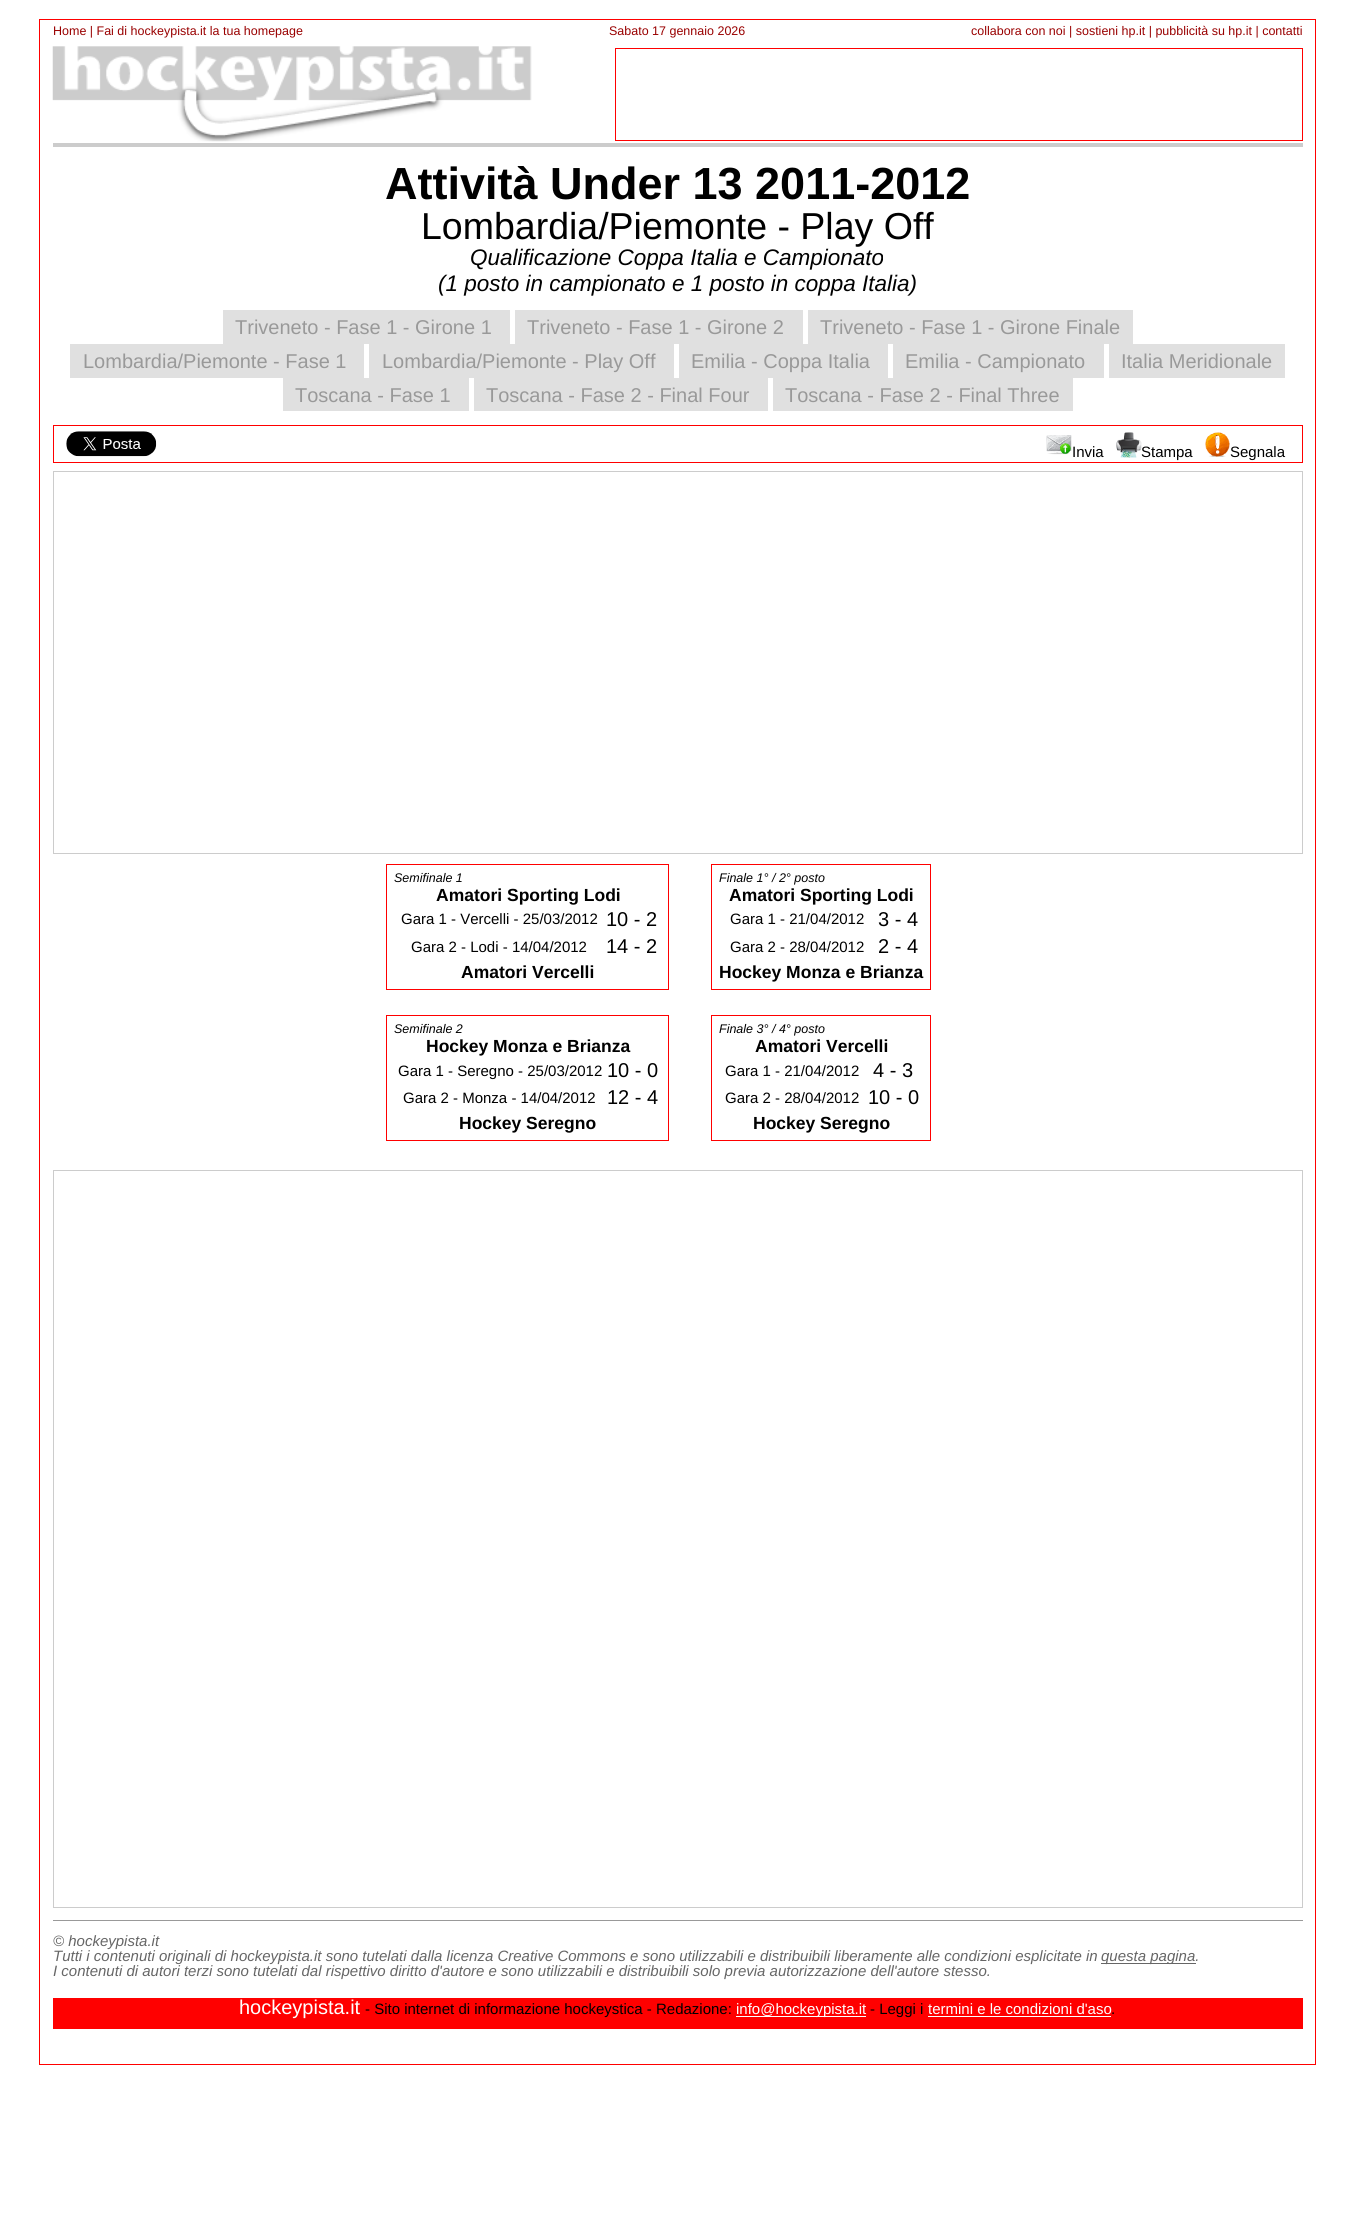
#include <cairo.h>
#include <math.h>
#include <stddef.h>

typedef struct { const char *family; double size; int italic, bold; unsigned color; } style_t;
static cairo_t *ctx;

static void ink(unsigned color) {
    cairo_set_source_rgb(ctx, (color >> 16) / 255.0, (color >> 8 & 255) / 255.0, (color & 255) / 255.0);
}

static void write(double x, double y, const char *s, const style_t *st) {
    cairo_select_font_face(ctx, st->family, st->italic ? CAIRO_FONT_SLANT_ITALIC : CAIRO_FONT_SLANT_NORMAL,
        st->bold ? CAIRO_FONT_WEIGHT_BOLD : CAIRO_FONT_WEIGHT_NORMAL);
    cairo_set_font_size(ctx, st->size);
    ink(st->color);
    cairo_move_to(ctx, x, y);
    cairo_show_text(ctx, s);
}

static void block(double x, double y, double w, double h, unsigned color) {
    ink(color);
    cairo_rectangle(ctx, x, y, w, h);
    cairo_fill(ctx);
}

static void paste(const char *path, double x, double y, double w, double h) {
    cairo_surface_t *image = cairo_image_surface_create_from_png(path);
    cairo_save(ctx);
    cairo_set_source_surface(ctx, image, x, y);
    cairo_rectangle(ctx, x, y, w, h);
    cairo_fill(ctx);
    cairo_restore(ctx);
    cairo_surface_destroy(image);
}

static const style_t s1 = {"Liberation Sans", 12.5, 0, 0, 0x990000};
static const style_t s2 = {"Liberation Sans", 45, 0, 1, 0x000000};
static const style_t s3 = {"Liberation Sans", 37.5, 0, 0, 0x000000};
static const style_t s4 = {"Liberation Sans", 22.5, 1, 0, 0x000000};
static const style_t s5 = {"Liberation Sans", 20, 0, 0, 0x999999};
static const style_t s6 = {"Liberation Sans", 15, 0, 0, 0x000000};
static const style_t s7 = {"Liberation Sans", 12.5, 1, 0, 0x000000};
static const style_t s8 = {"Liberation Sans", 17.5, 0, 1, 0x000000};
static const style_t s9 = {"Liberation Sans", 20, 0, 0, 0x000000};
static const style_t s10 = {"Liberation Sans", 15, 1, 0, 0x666666};
static const style_t s11 = {"Liberation Sans", 20, 0, 0, 0xffffff};
static const style_t s12 = {"Liberation Sans", 15, 0, 0, 0xffffff};

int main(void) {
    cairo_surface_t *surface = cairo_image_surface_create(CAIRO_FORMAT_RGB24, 1354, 2231);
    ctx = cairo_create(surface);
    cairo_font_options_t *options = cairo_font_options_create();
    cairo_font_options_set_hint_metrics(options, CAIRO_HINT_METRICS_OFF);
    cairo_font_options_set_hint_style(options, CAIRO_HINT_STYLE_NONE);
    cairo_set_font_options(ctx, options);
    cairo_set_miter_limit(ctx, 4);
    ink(0xffffff);
    cairo_paint(ctx);
    cairo_rectangle(ctx, 39.5, 19.5, 1276, 2045);
    ink(0xff0000);
    cairo_set_line_width(ctx, 1);
    cairo_stroke(ctx);
    write(53, 35, "Home | Fai di hockeypista.it la tua homepage", &s1);
    write(609, 35, "Sabato 17 gennaio 2026", &s1);
    write(971, 35, "collabora con noi | sostieni hp.it | pubblicità su hp.it | contatti", &s1);
    paste("pic1.png", 52, 46, 480, 96);
    cairo_rectangle(ctx, 615.5, 48.5, 687, 92);
    ink(0xff0000);
    cairo_stroke(ctx);
    block(53, 143, 1250, 4, 0xcccccc);
    write(385, 199, "Attività Under 13 2011-2012", &s2);
    write(421, 239, "Lombardia/Piemonte - Play Off", &s3);
    write(470, 265, "Qualificazione Coppa Italia e Campionato", &s4);
    write(438, 291, "(1 posto in campionato e 1 posto in coppa Italia)", &s4);
    block(223, 310, 287, 34, 0xe0e0e0);
    write(235, 334, "Triveneto - Fase 1 - Girone 1", &s5);
    block(515, 310, 288, 34, 0xe0e0e0);
    write(527, 334, "Triveneto - Fase 1 - Girone 2", &s5);
    block(808, 310, 325, 34, 0xe0e0e0);
    write(820, 334, "Triveneto - Fase 1 - Girone Finale", &s5);
    block(70, 344, 294, 34, 0xe0e0e0);
    write(83, 368, "Lombardia/Piemonte - Fase 1", &s5);
    block(369, 344, 305, 34, 0xe0e0e0);
    write(382, 368, "Lombardia/Piemonte - Play Off", &s5);
    block(679, 344, 209, 34, 0xe0e0e0);
    write(691, 368, "Emilia - Coppa Italia", &s5);
    block(893, 344, 211, 34, 0xe0e0e0);
    write(905, 368, "Emilia - Campionato", &s5);
    block(1109, 344, 176, 34, 0xe0e0e0);
    write(1121, 368, "Italia Meridionale", &s5);
    block(283, 378, 186, 33, 0xe0e0e0);
    write(295, 402, "Toscana - Fase 1", &s5);
    block(474, 378, 294, 33, 0xe0e0e0);
    write(486, 402, "Toscana - Fase 2 - Final Four", &s5);
    block(773, 378, 300, 33, 0xe0e0e0);
    write(785, 402, "Toscana - Fase 2 - Final Three", &s5);
    cairo_rectangle(ctx, 53.5, 425.5, 1249, 37);
    ink(0xff0000);
    cairo_stroke(ctx);
    paste("pic2.png", 66, 431, 91, 26);
    paste("pic3.png", 1046, 435, 26, 20);
    write(1072, 457, "Invia", &s6);
    paste("pic4.png", 1116, 432, 26, 26);
    write(1141, 457, "Stampa", &s6);
    paste("pic5.png", 1205, 432, 25, 25);
    write(1230, 457, "Segnala", &s6);
    cairo_rectangle(ctx, 53.5, 471.5, 1249, 382);
    ink(0xcccccc);
    cairo_stroke(ctx);
    cairo_rectangle(ctx, 386.5, 864.5, 282, 125);
    ink(0xff0000);
    cairo_stroke(ctx);
    write(394, 882, "Semifinale 1", &s7);
    write(436, 901, "Amatori Sporting Lodi", &s8);
    write(401, 924, "Gara 1 - Vercelli - 25/03/2012", &s6);
    write(606, 926, "10 - 2", &s9);
    write(411, 952, "Gara 2 - Lodi - 14/04/2012", &s6);
    write(606, 953, "14 - 2", &s9);
    write(461, 978, "Amatori Vercelli", &s8);
    cairo_rectangle(ctx, 386.5, 1015.5, 282, 125);
    ink(0xff0000);
    cairo_stroke(ctx);
    write(394, 1033, "Semifinale 2", &s7);
    write(426, 1052, "Hockey Monza e Brianza", &s8);
    write(398, 1076, "Gara 1 - Seregno - 25/03/2012", &s6);
    write(607, 1077, "10 - 0", &s9);
    write(403, 1103, "Gara 2 - Monza - 14/04/2012", &s6);
    write(607, 1104, "12 - 4", &s9);
    write(459, 1129, "Hockey Seregno", &s8);
    cairo_rectangle(ctx, 711.5, 864.5, 219, 125);
    ink(0xff0000);
    cairo_stroke(ctx);
    write(719, 882, "Finale 1° / 2° posto", &s7);
    write(729, 901, "Amatori Sporting Lodi", &s8);
    write(730, 924, "Gara 1 - 21/04/2012", &s6);
    write(878, 926, "3 - 4", &s9);
    write(730, 952, "Gara 2 - 28/04/2012", &s6);
    write(878, 953, "2 - 4", &s9);
    write(719, 978, "Hockey Monza e Brianza", &s8);
    cairo_rectangle(ctx, 711.5, 1015.5, 219, 125);
    ink(0xff0000);
    cairo_stroke(ctx);
    write(719, 1033, "Finale 3° / 4° posto", &s7);
    write(755, 1052, "Amatori Vercelli", &s8);
    write(725, 1076, "Gara 1 - 21/04/2012", &s6);
    write(873, 1077, "4 - 3", &s9);
    write(725, 1103, "Gara 2 - 28/04/2012", &s6);
    write(868, 1104, "10 - 0", &s9);
    write(753, 1129, "Hockey Seregno", &s8);
    cairo_rectangle(ctx, 53.5, 1170.5, 1249, 737);
    ink(0xcccccc);
    cairo_stroke(ctx);
    block(53, 1920, 1250, 1, 0x999999);
    write(53, 1946, "© hockeypista.it", &s10);
    write(53, 1961, "Tutti i contenuti originali di hockeypista.it sono tutelati dalla licenza Creative Commons e sono utilizzabili e distribuibili liberamente alle condizioni esplicitate in", &s10);
    block(1101, 1963, 95, 1, 0x666666);
    write(1101, 1961, "questa pagina.", &s10);
    write(53, 1976, "I contenuti di autori terzi sono tutelati dal rispettivo diritto d'autore e sono utilizzabili e distribuibili solo previa autorizzazione dell'autore stesso.", &s10);
    block(53, 1998, 1250, 31, 0xff0000);
    write(239, 2014, "hockeypista.it", &s11);
    write(365, 2014, "- Sito internet di informazione hockeystica - Redazione:", &s6);
    block(736, 2016, 130, 1, 0xffffff);
    write(736, 2014, "info@hockeypista.it", &s12);
    write(870, 2014, "- Leggi i", &s6);
    write(928, 2014, "termini e le condizioni d'aso", &s12);
    block(928, 2016, 183, 1, 0xffffff);
    write(1111, 2014, ".", &s6);
    cairo_surface_write_to_png(surface, "screenshot.png");
    cairo_font_options_destroy(options);
    cairo_destroy(ctx);
    cairo_surface_destroy(surface);
    return 0;
}
